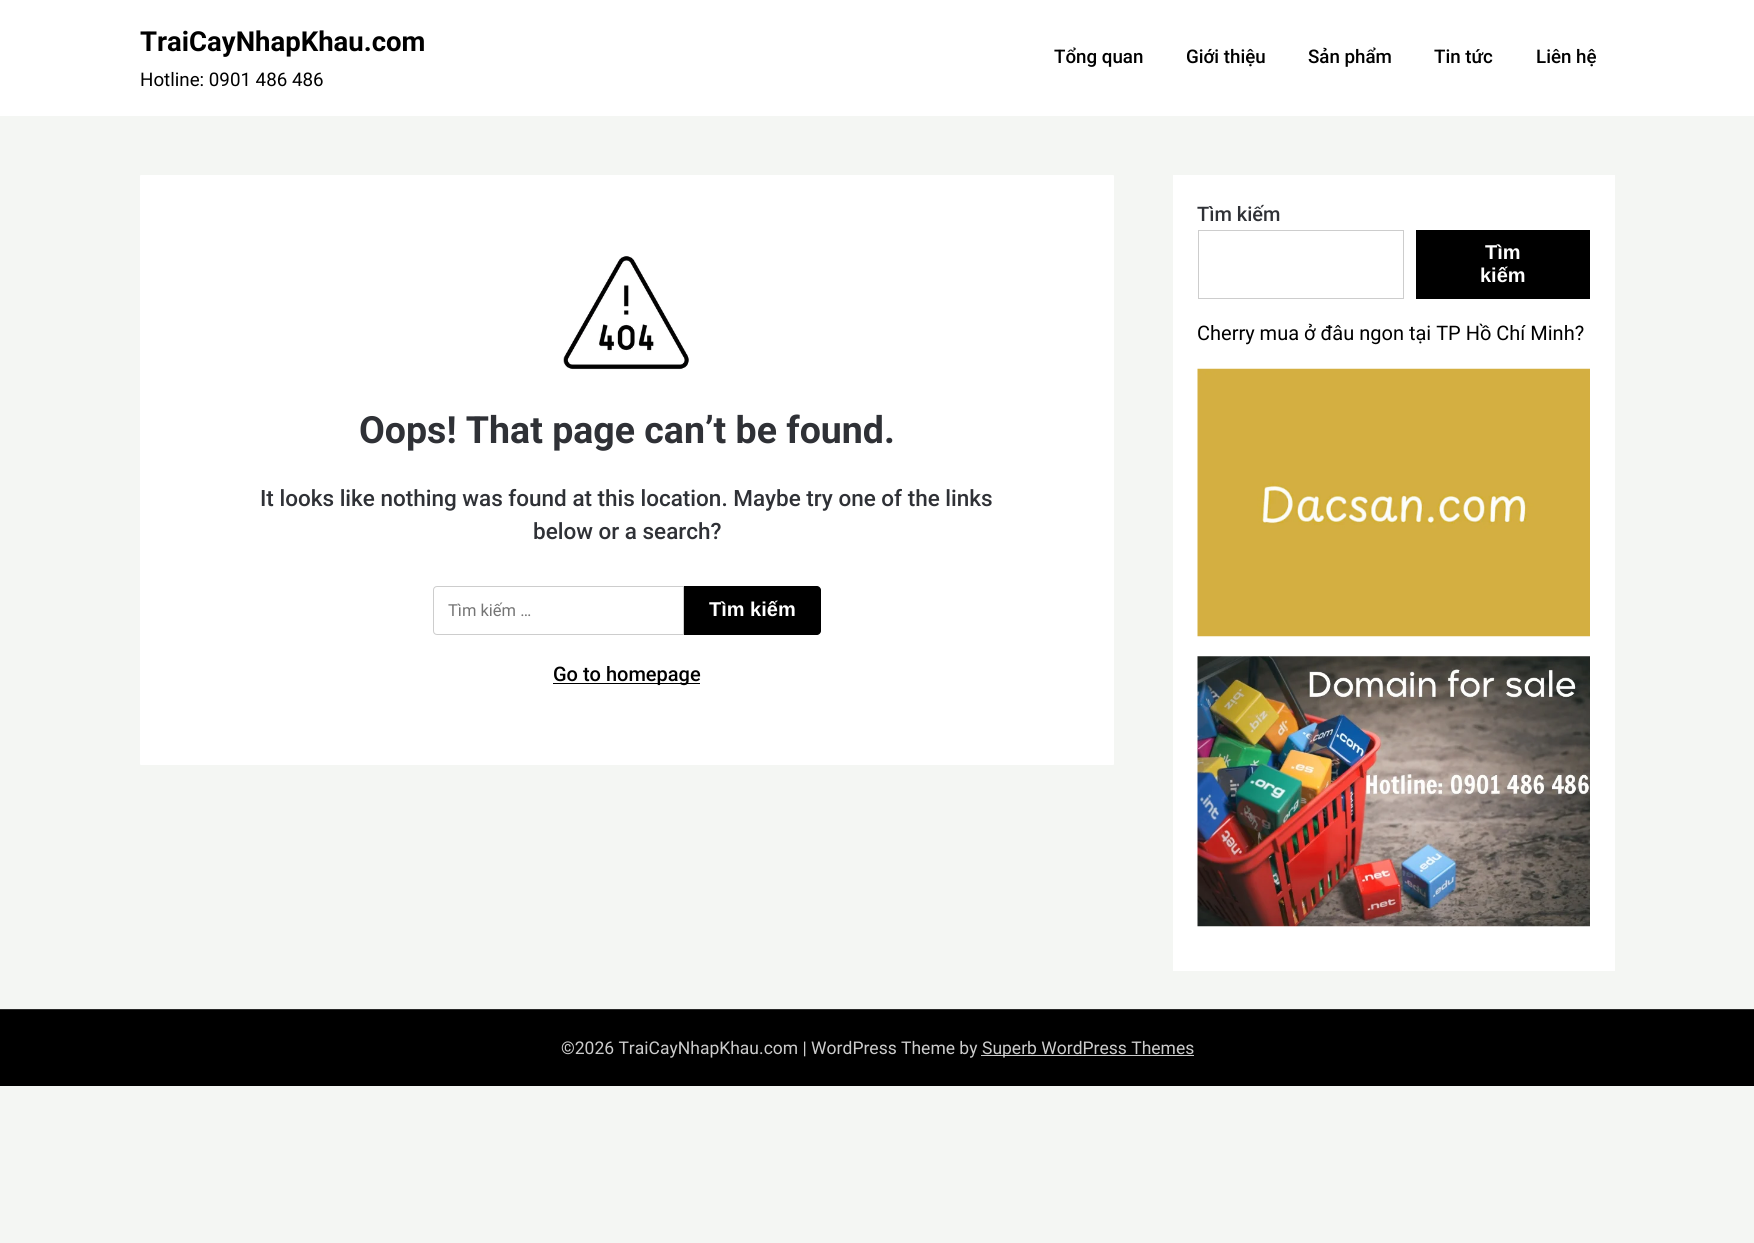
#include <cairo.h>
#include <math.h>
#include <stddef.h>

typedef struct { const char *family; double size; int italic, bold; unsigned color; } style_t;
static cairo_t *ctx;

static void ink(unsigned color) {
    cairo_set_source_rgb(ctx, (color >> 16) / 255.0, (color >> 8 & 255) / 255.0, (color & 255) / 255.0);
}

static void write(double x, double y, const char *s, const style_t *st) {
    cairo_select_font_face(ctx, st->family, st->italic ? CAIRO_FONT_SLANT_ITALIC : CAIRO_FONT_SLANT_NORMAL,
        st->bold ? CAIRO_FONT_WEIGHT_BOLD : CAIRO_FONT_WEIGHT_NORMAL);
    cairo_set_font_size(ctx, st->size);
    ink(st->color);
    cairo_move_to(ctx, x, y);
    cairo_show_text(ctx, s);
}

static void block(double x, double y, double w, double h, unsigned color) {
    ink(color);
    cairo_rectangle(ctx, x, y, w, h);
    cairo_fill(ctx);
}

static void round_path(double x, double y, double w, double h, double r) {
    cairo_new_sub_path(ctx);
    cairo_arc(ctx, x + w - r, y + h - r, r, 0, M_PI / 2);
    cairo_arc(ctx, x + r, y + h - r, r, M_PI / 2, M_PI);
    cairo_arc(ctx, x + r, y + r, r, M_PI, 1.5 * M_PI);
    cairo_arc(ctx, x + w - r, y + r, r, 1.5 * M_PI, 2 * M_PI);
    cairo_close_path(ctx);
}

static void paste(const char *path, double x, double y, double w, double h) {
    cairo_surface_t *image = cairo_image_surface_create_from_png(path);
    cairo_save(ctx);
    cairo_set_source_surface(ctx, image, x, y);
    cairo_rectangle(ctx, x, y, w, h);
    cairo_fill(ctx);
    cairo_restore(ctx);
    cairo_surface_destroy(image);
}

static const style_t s1 = {"Roboto", 27.5, 0, 1, 0x000000};
static const style_t s2 = {"Roboto", 18.75, 0, 0, 0x000000};
static const style_t s3 = {"Roboto Medium", 18.75, 0, 0, 0x000000};
static const style_t s4 = {"Roboto Medium", 20, 0, 0, 0x2f3136};
static const style_t s5 = {"Liberation Sans", 20, 0, 1, 0xffffff};
static const style_t s6 = {"Roboto", 20, 0, 0, 0x000000};
static const style_t s7 = {"Roboto", 37.5, 0, 1, 0x2f3136};
static const style_t s8 = {"Roboto Medium", 22.5, 0, 0, 0x2f3136};
static const style_t s9 = {"Roboto", 16.5, 0, 0, 0x757575};
static const style_t s10 = {"Roboto Medium", 20, 0, 0, 0x000000};
static const style_t s11 = {"Roboto", 17.5, 0, 0, 0xcccccc};

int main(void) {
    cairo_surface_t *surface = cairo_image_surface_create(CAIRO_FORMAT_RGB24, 1754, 1243);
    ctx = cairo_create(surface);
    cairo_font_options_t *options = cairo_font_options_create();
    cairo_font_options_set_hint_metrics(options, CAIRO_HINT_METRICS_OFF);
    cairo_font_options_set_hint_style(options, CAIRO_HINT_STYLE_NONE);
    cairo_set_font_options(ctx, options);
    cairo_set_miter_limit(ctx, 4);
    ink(0xf4f6f3);
    cairo_paint(ctx);
    block(0, 0, 1754, 116, 0xffffff);
    write(140, 51, "TraiCayNhapKhau.com", &s1);
    write(140, 86, "Hotline: 0901 486 486", &s2);
    write(1054, 63, "Tổng quan", &s3);
    write(1186, 63, "Giới thiệu", &s3);
    write(1308, 63, "Sản phẩm", &s3);
    write(1434, 63, "Tin tức", &s3);
    write(1536, 63, "Liên hệ", &s3);
    block(1173, 175, 442, 796, 0xffffff);
    write(1197, 221, "Tìm kiếm", &s4);
    cairo_rectangle(ctx, 1198.5, 230.5, 205, 68);
    ink(0xcdcdcd);
    cairo_set_line_width(ctx, 1);
    cairo_stroke(ctx);
    block(1416, 230, 174, 69, 0x000000);
    write(1485, 259, "Tìm", &s5);
    write(1480, 282, "kiếm", &s5);
    write(1197, 340, "Cherry mua ở đâu ngon tại TP Hồ Chí Minh?", &s6);
    paste("pic1.png", 1197, 368, 393, 269);
    paste("pic2.png", 1197, 656, 393, 271);
    ink(0xffffff);
    round_path(140, 175, 974, 590, 1);
    cairo_fill(ctx);
    paste("pic3.png", 563, 256, 126, 114);
    write(359, 443, "Oops! That page can’t be found.", &s7);
    write(260, 506, "It looks like nothing was found at this location. Maybe try one of the links", &s8);
    write(533, 539, "below or a search?", &s8);
    cairo_new_path(ctx);
    cairo_move_to(ctx, 437, 586.5);
    cairo_line_to(ctx, 683.5, 586.5);
    cairo_line_to(ctx, 683.5, 634.5);
    cairo_line_to(ctx, 437, 634.5);
    cairo_curve_to(ctx, 435, 634.5, 433.5, 633, 433.5, 631);
    cairo_line_to(ctx, 433.5, 590);
    cairo_curve_to(ctx, 433.5, 588, 435, 586.5, 437, 586.5);
    cairo_close_path(ctx);
    ink(0xcdcdcd);
    cairo_stroke(ctx);
    write(448, 616, "Tìm kiếm …", &s9);
    ink(0x000000);
    cairo_new_path(ctx);
    cairo_move_to(ctx, 684, 586);
    cairo_line_to(ctx, 817, 586);
    cairo_curve_to(ctx, 819, 586, 821, 588, 821, 590);
    cairo_line_to(ctx, 821, 631);
    cairo_curve_to(ctx, 821, 633, 819, 635, 817, 635);
    cairo_line_to(ctx, 684, 635);
    cairo_close_path(ctx);
    cairo_fill(ctx);
    write(709, 616, "Tìm kiếm", &s5);
    block(553, 683, 147, 1, 0x000000);
    write(553, 681, "Go to homepage", &s10);
    block(0, 1010, 1754, 76, 0x000000);
    block(0, 1009, 1754, 1, 0x292929);
    write(561, 1054, "©2026 TraiCayNhapKhau.com | WordPress Theme by", &s11);
    block(981, 1055, 213, 1, 0xcccccc);
    write(982, 1054, "Superb WordPress Themes", &s11);
    cairo_surface_write_to_png(surface, "screenshot.png");
    cairo_font_options_destroy(options);
    cairo_destroy(ctx);
    cairo_surface_destroy(surface);
    return 0;
}
